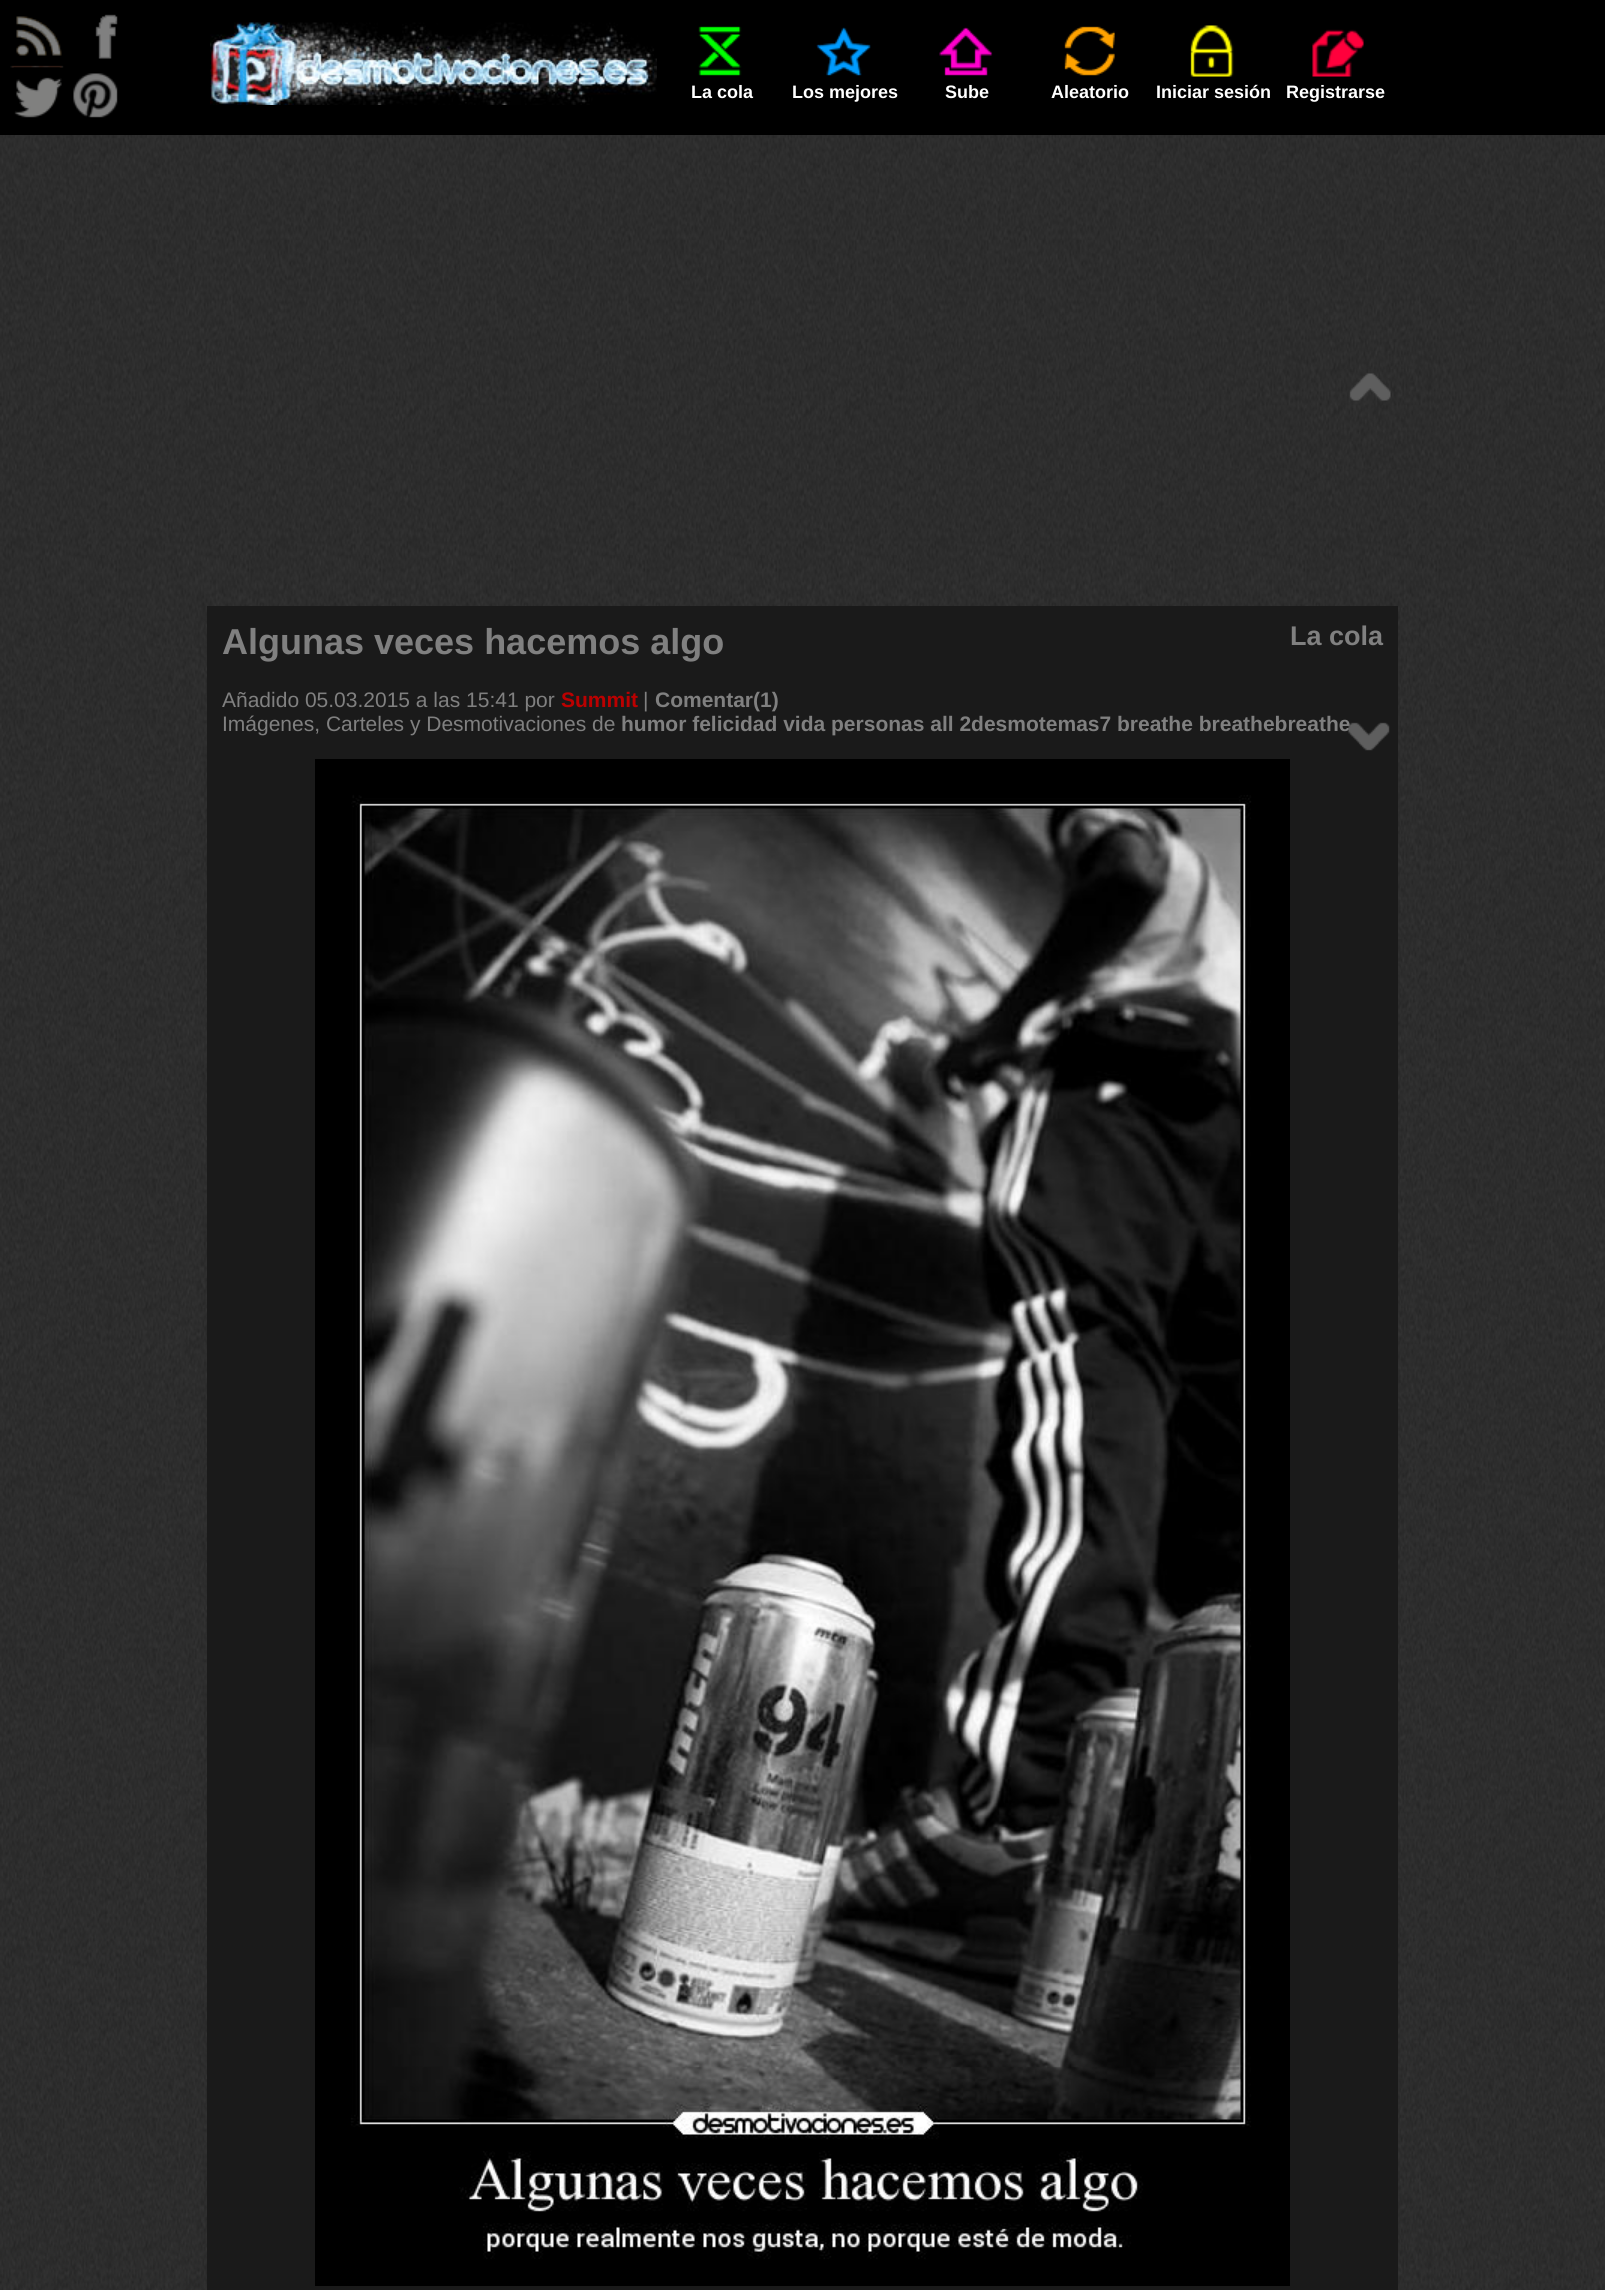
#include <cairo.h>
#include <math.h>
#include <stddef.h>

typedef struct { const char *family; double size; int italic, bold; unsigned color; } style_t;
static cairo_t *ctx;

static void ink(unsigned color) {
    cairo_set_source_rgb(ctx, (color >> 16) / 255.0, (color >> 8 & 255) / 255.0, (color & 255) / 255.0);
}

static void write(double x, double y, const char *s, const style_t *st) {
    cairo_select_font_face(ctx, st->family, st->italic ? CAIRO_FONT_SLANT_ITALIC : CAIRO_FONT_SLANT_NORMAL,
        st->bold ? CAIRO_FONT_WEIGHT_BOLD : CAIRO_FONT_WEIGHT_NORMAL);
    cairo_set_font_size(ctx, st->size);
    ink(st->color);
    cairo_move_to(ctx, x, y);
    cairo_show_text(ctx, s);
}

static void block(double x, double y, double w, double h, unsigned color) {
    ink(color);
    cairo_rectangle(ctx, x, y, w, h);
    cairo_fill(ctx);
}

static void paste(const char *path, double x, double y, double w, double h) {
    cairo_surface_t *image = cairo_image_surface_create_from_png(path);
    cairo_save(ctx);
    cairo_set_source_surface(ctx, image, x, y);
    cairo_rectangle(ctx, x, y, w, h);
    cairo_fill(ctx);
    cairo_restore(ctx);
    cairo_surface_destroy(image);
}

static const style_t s1 = {"Liberation Sans", 18, 0, 1, 0xffffff};
static const style_t s2 = {"Liberation Sans", 21, 0, 1, 0x808080};
static const style_t s3 = {"Liberation Sans", 36, 0, 1, 0x808080};
static const style_t s4 = {"Liberation Sans", 27, 0, 1, 0x808080};
static const style_t s5 = {"Liberation Sans", 21, 0, 0, 0x808080};
static const style_t s6 = {"Liberation Sans", 21, 0, 1, 0xbb0000};

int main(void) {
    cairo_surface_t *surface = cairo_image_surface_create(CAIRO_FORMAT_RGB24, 1605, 2290);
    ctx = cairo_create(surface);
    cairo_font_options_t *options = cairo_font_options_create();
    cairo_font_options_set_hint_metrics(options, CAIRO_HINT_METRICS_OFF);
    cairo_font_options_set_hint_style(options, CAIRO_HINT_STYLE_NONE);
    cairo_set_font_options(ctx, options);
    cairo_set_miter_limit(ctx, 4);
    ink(0xffffff);
    cairo_paint(ctx);
    paste("pic1.png", 0, 135, 1605, 2155);
    block(0, 0, 1605, 135, 0x000000);
    paste("pic2.png", 10, 16, 54, 52);
    paste("pic3.png", 95, 14, 23, 45);
    paste("pic4.png", 13, 67, 49, 51);
    paste("pic5.png", 73, 73, 45, 45);
    paste("pic6.png", 210, 22, 447, 83);
    paste("pic7.png", 698, 26, 44, 50);
    write(691, 98, "La cola", &s1);
    paste("pic8.png", 816, 27, 55, 49);
    write(792, 98, "Los mejores", &s1);
    paste("pic9.png", 939, 27, 54, 49);
    write(945, 98, "Sube", &s1);
    paste("pic10.png", 1064, 26, 51, 50);
    write(1051, 98, "Aleatorio", &s1);
    paste("pic11.png", 1190, 25, 44, 52);
    write(1156, 98, "Iniciar sesión", &s1);
    paste("pic12.png", 1312, 29, 52, 48);
    write(1286, 98, "Registrarse", &s1);
    paste("pic13.png", 1349, 373, 42, 28);
    block(207, 606, 1191, 1684, 0x1a1a1a);
    write(621, 731, "humor felicidad vida personas all 2desmotemas7 breathe breathebreathe", &s2);
    paste("pic14.png", 1348, 722, 42, 29);
    write(222, 654, "Algunas veces hacemos algo", &s3);
    write(1290, 645, "La cola", &s4);
    write(222, 707, "Añadido 05.03.2015 a las 15:41 por", &s5);
    write(561, 707, "Summit", &s6);
    write(643, 707, "|", &s5);
    write(655, 707, "Comentar(1)", &s2);
    write(222, 731, "Imágenes, Carteles y Desmotivaciones de", &s5);
    paste("pic15.png", 315, 759, 975, 1527);
    cairo_surface_write_to_png(surface, "screenshot.png");
    cairo_font_options_destroy(options);
    cairo_destroy(ctx);
    cairo_surface_destroy(surface);
    return 0;
}
